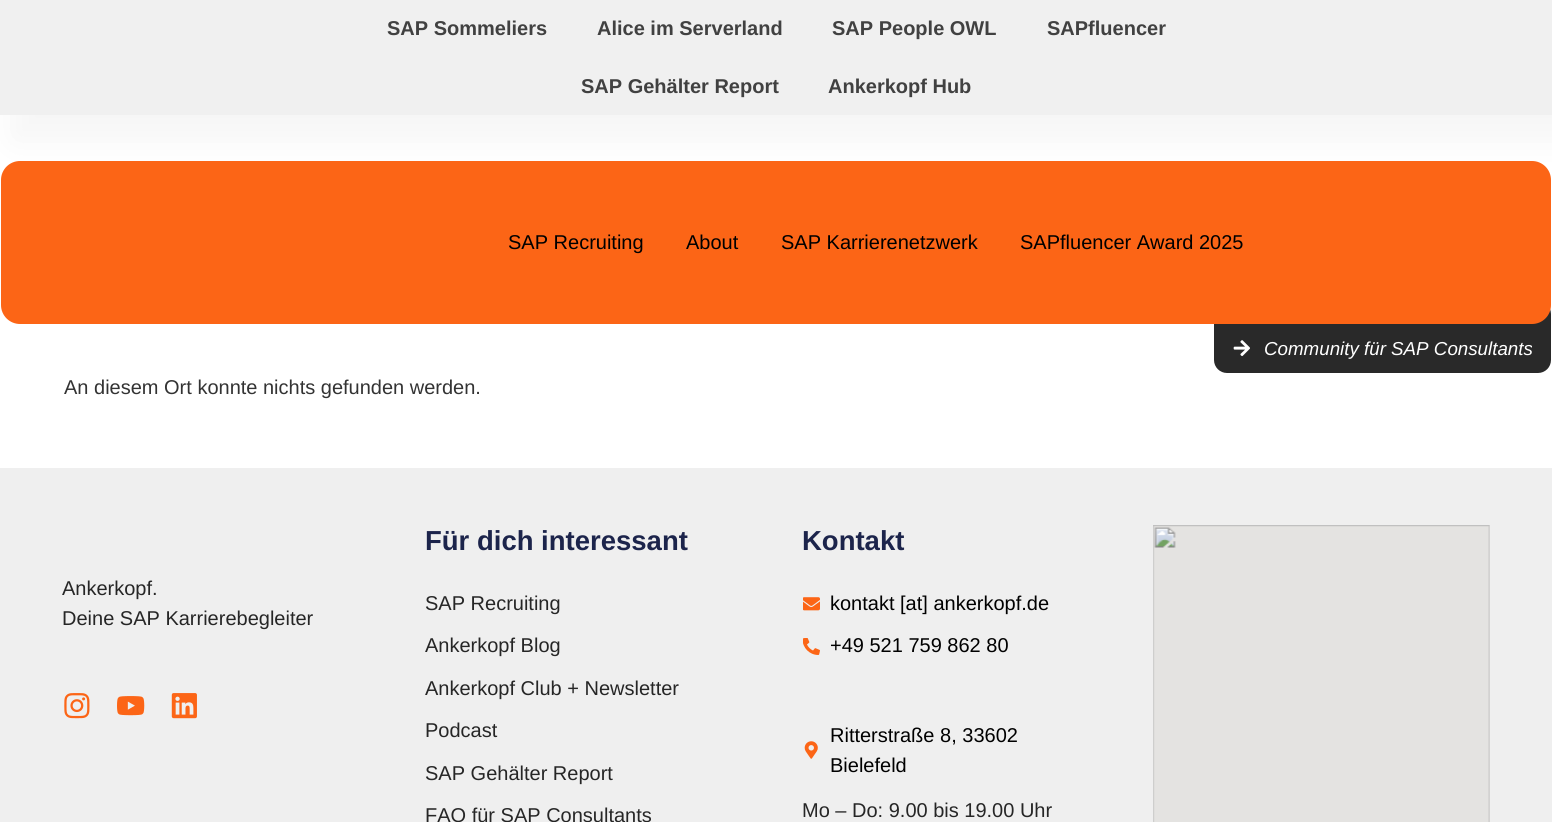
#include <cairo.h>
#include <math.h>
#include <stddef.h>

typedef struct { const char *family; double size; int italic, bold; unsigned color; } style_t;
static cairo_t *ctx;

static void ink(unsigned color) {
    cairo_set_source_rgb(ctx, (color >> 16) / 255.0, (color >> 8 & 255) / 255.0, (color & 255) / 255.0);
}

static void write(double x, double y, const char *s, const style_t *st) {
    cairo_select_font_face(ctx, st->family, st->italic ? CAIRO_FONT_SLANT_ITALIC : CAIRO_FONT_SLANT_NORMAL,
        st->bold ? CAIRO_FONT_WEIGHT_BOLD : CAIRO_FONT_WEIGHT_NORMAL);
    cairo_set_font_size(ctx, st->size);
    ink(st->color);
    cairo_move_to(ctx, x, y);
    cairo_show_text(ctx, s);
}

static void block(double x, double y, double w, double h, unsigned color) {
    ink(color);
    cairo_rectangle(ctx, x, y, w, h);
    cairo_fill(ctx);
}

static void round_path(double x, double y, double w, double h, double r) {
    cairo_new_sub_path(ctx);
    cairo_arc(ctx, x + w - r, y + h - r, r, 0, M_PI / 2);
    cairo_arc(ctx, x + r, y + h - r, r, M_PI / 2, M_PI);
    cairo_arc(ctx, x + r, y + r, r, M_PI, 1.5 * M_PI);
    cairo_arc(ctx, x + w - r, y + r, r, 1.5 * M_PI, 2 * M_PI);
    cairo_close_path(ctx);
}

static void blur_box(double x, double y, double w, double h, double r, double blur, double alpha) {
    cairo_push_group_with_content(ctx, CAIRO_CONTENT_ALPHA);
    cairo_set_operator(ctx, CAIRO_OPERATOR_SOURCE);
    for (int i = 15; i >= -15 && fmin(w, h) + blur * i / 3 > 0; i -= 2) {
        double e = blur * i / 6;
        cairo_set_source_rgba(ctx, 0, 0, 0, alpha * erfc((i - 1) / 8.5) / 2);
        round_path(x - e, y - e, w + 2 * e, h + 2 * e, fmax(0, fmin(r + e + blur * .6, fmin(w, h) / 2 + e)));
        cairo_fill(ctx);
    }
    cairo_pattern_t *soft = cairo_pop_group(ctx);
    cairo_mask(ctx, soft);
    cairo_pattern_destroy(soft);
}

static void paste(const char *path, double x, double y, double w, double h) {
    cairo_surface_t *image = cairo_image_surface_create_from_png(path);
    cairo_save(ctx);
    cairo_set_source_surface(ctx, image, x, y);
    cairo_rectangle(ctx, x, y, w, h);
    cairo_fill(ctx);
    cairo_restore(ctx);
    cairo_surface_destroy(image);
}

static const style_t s1 = {"Liberation Sans", 20, 0, 1, 0x414141};
static const style_t s2 = {"Liberation Sans", 20, 0, 0, 0x000000};
static const style_t s3 = {"Liberation Sans", 18.75, 1, 0, 0xffffff};
static const style_t s4 = {"Liberation Sans", 20, 0, 0, 0x333333};
static const style_t s5 = {"Liberation Sans", 20, 0, 0, 0x262626};
static const style_t s6 = {"Liberation Sans", 27.5, 0, 1, 0x1c244b};

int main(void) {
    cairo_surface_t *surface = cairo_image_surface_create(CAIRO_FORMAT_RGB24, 1552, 822);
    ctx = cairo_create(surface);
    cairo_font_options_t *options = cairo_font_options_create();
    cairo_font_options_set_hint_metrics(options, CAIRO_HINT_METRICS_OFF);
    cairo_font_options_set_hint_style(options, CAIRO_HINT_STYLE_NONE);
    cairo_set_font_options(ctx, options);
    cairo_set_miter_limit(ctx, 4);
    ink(0xffffff);
    cairo_paint(ctx);
    ink(0x292929);
    round_path(1214, 301, 337, 72, 13);
    cairo_fill(ctx);
    ink(0xfc6516);
    round_path(1, 161, 1550, 163, 19);
    cairo_fill(ctx);
    ink(0x000000);
    blur_box(13, 13, 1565, 127, 0, 19, 0.04);
    block(0, 0, 1552, 115, 0xf0f0f0);
    write(387, 35, "SAP Sommeliers", &s1);
    write(597, 35, "Alice im Serverland", &s1);
    write(832, 35, "SAP People OWL", &s1);
    write(1047, 35, "SAPfluencer", &s1);
    write(581, 93, "SAP Gehälter Report", &s1);
    write(828, 93, "Ankerkopf Hub", &s1);
    write(508, 249, "SAP Recruiting", &s2);
    write(686, 249, "About", &s2);
    write(781, 249, "SAP Karrierenetzwerk", &s2);
    write(1020, 249, "SAPfluencer Award 2025", &s2);
    paste("pic1.png", 1233, 340, 17, 17);
    write(1264, 355, "Community für SAP Consultants", &s3);
    write(64, 394, "An diesem Ort konnte nichts gefunden werden.", &s4);
    block(0, 468, 1552, 354, 0xefefef);
    write(62, 595, "Ankerkopf.", &s5);
    write(62, 625, "Deine SAP Karrierebegleiter", &s5);
    paste("pic2.png", 64, 693, 26, 26);
    paste("pic3.png", 117, 696, 28, 20);
    paste("pic4.png", 171, 693, 26, 26);
    write(425, 550, "Für dich interessant", &s6);
    write(425, 610, "SAP Recruiting", &s5);
    write(425, 652, "Ankerkopf Blog", &s5);
    write(425, 695, "Ankerkopf Club + Newsletter", &s5);
    write(425, 737, "Podcast", &s5);
    write(425, 780, "SAP Gehälter Report", &s5);
    write(425, 822, "FAQ für SAP Consultants", &s5);
    write(802, 550, "Kontakt", &s6);
    paste("pic5.png", 803, 597, 17, 14);
    write(830, 610, "kontakt [at] ankerkopf.de", &s2);
    paste("pic6.png", 803, 638, 17, 17);
    write(830, 652, "+49 521 759 862 80", &s2);
    paste("pic7.png", 804, 741, 14, 18);
    write(830, 742, "Ritterstraße 8, 33602", &s2);
    write(830, 772, "Bielefeld", &s2);
    write(802, 817, "Mo – Do: 9.00 bis 19.00 Uhr", &s5);
    paste("pic8.png", 1153, 525, 337, 297);
    cairo_surface_write_to_png(surface, "screenshot.png");
    cairo_font_options_destroy(options);
    cairo_destroy(ctx);
    cairo_surface_destroy(surface);
    return 0;
}
